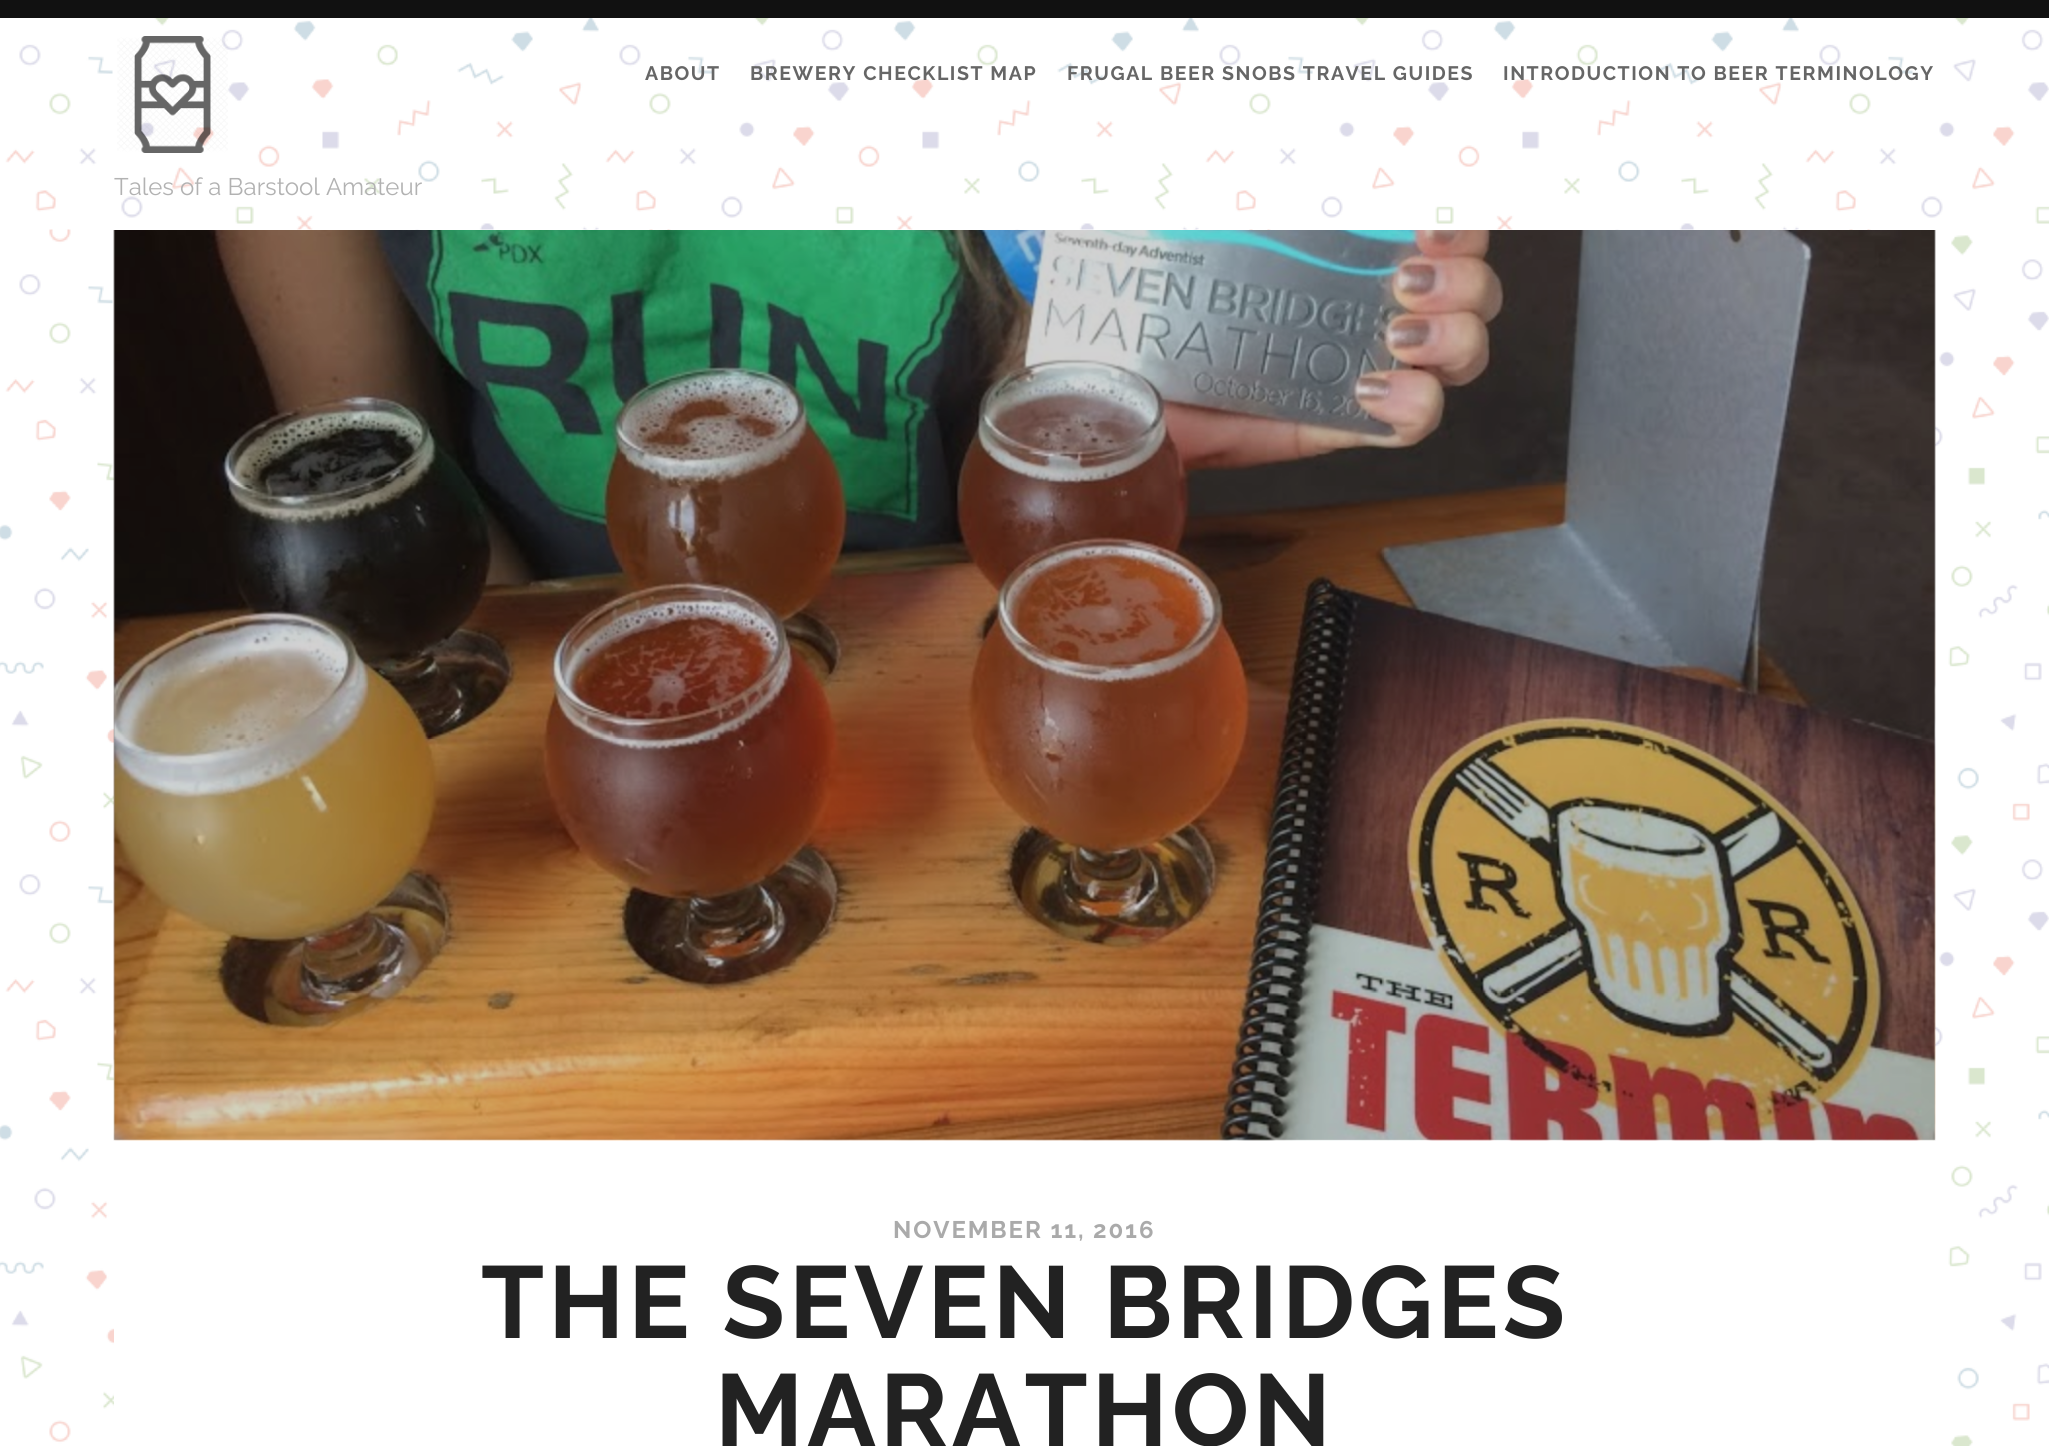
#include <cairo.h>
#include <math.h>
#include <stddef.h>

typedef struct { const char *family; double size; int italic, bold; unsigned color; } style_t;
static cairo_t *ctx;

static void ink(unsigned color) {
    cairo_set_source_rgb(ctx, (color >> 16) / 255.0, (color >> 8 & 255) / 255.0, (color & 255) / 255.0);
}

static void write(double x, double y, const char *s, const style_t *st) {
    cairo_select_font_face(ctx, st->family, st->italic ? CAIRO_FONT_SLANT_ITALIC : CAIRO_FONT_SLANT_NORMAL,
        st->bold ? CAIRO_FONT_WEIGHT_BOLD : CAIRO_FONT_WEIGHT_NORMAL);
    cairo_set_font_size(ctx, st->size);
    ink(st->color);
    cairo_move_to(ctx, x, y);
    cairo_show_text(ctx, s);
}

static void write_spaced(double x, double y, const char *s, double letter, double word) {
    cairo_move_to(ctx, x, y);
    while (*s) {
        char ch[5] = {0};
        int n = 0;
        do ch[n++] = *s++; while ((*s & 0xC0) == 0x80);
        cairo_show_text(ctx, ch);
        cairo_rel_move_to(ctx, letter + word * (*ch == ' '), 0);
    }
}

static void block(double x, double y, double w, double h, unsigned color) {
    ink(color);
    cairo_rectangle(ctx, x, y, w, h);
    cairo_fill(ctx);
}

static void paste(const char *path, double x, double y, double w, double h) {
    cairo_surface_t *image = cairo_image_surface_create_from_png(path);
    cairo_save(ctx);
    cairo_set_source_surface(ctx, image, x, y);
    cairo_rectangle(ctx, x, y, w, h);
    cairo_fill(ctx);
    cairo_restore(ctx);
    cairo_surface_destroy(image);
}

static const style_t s1 = {"Raleway", 24, 0, 0, 0xb2b2b2};

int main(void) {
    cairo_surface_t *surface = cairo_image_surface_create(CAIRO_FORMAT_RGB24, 2049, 1446);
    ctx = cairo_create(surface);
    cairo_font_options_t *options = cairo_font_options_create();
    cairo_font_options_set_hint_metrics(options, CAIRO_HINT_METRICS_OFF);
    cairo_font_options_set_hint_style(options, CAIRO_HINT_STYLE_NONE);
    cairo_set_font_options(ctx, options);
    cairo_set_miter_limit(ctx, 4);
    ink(0xffffff);
    cairo_paint(ctx);
    paste("pic1.png", 0, 18, 2049, 212);
    block(0, 0, 2049, 18, 0x111111);
    paste("pic2.png", 117, 36, 111, 117);
    cairo_select_font_face(ctx, "Raleway", CAIRO_FONT_SLANT_NORMAL, CAIRO_FONT_WEIGHT_BOLD);
    cairo_set_font_size(ctx, 19.5);
    ink(0x666666);
    write_spaced(645, 80, "ABOUT", 1.55, 0);
    write_spaced(750, 80, "BREWERY CHECKLIST MAP", 1.55, 0);
    write_spaced(1067, 80, "FRUGAL BEER SNOBS TRAVEL GUIDES", 1.55, 0);
    write_spaced(1503, 80, "INTRODUCTION TO BEER TERMINOLOGY", 1.55, 0);
    write(114, 195, "Tales of a Barstool Amateur", &s1);
    paste("pic3.png", 0, 229, 2049, 1217);
    block(114, 230, 1821, 1216, 0xffffff);
    paste("pic4.png", 113, 230, 1823, 911);
    cairo_set_source_rgba(ctx, 0.133, 0.133, 0.133, 0.2);
    cairo_rectangle(ctx, 114, 230, 1821, 910);
    cairo_fill(ctx);
    cairo_select_font_face(ctx, "Raleway", CAIRO_FONT_SLANT_NORMAL, CAIRO_FONT_WEIGHT_BOLD);
    ink(0xaaaaaa);
    write_spaced(893, 1238, "NOVEMBER 11, 2016", 1.9, 0);
    cairo_set_font_size(ctx, 102);
    ink(0x222222);
    write_spaced(481, 1338, "THE SEVEN BRIDGES", 4.1, 0);
    write_spaced(715, 1446, "MARATHON", 4.1, 0);
    cairo_surface_write_to_png(surface, "screenshot.png");
    cairo_font_options_destroy(options);
    cairo_destroy(ctx);
    cairo_surface_destroy(surface);
    return 0;
}
